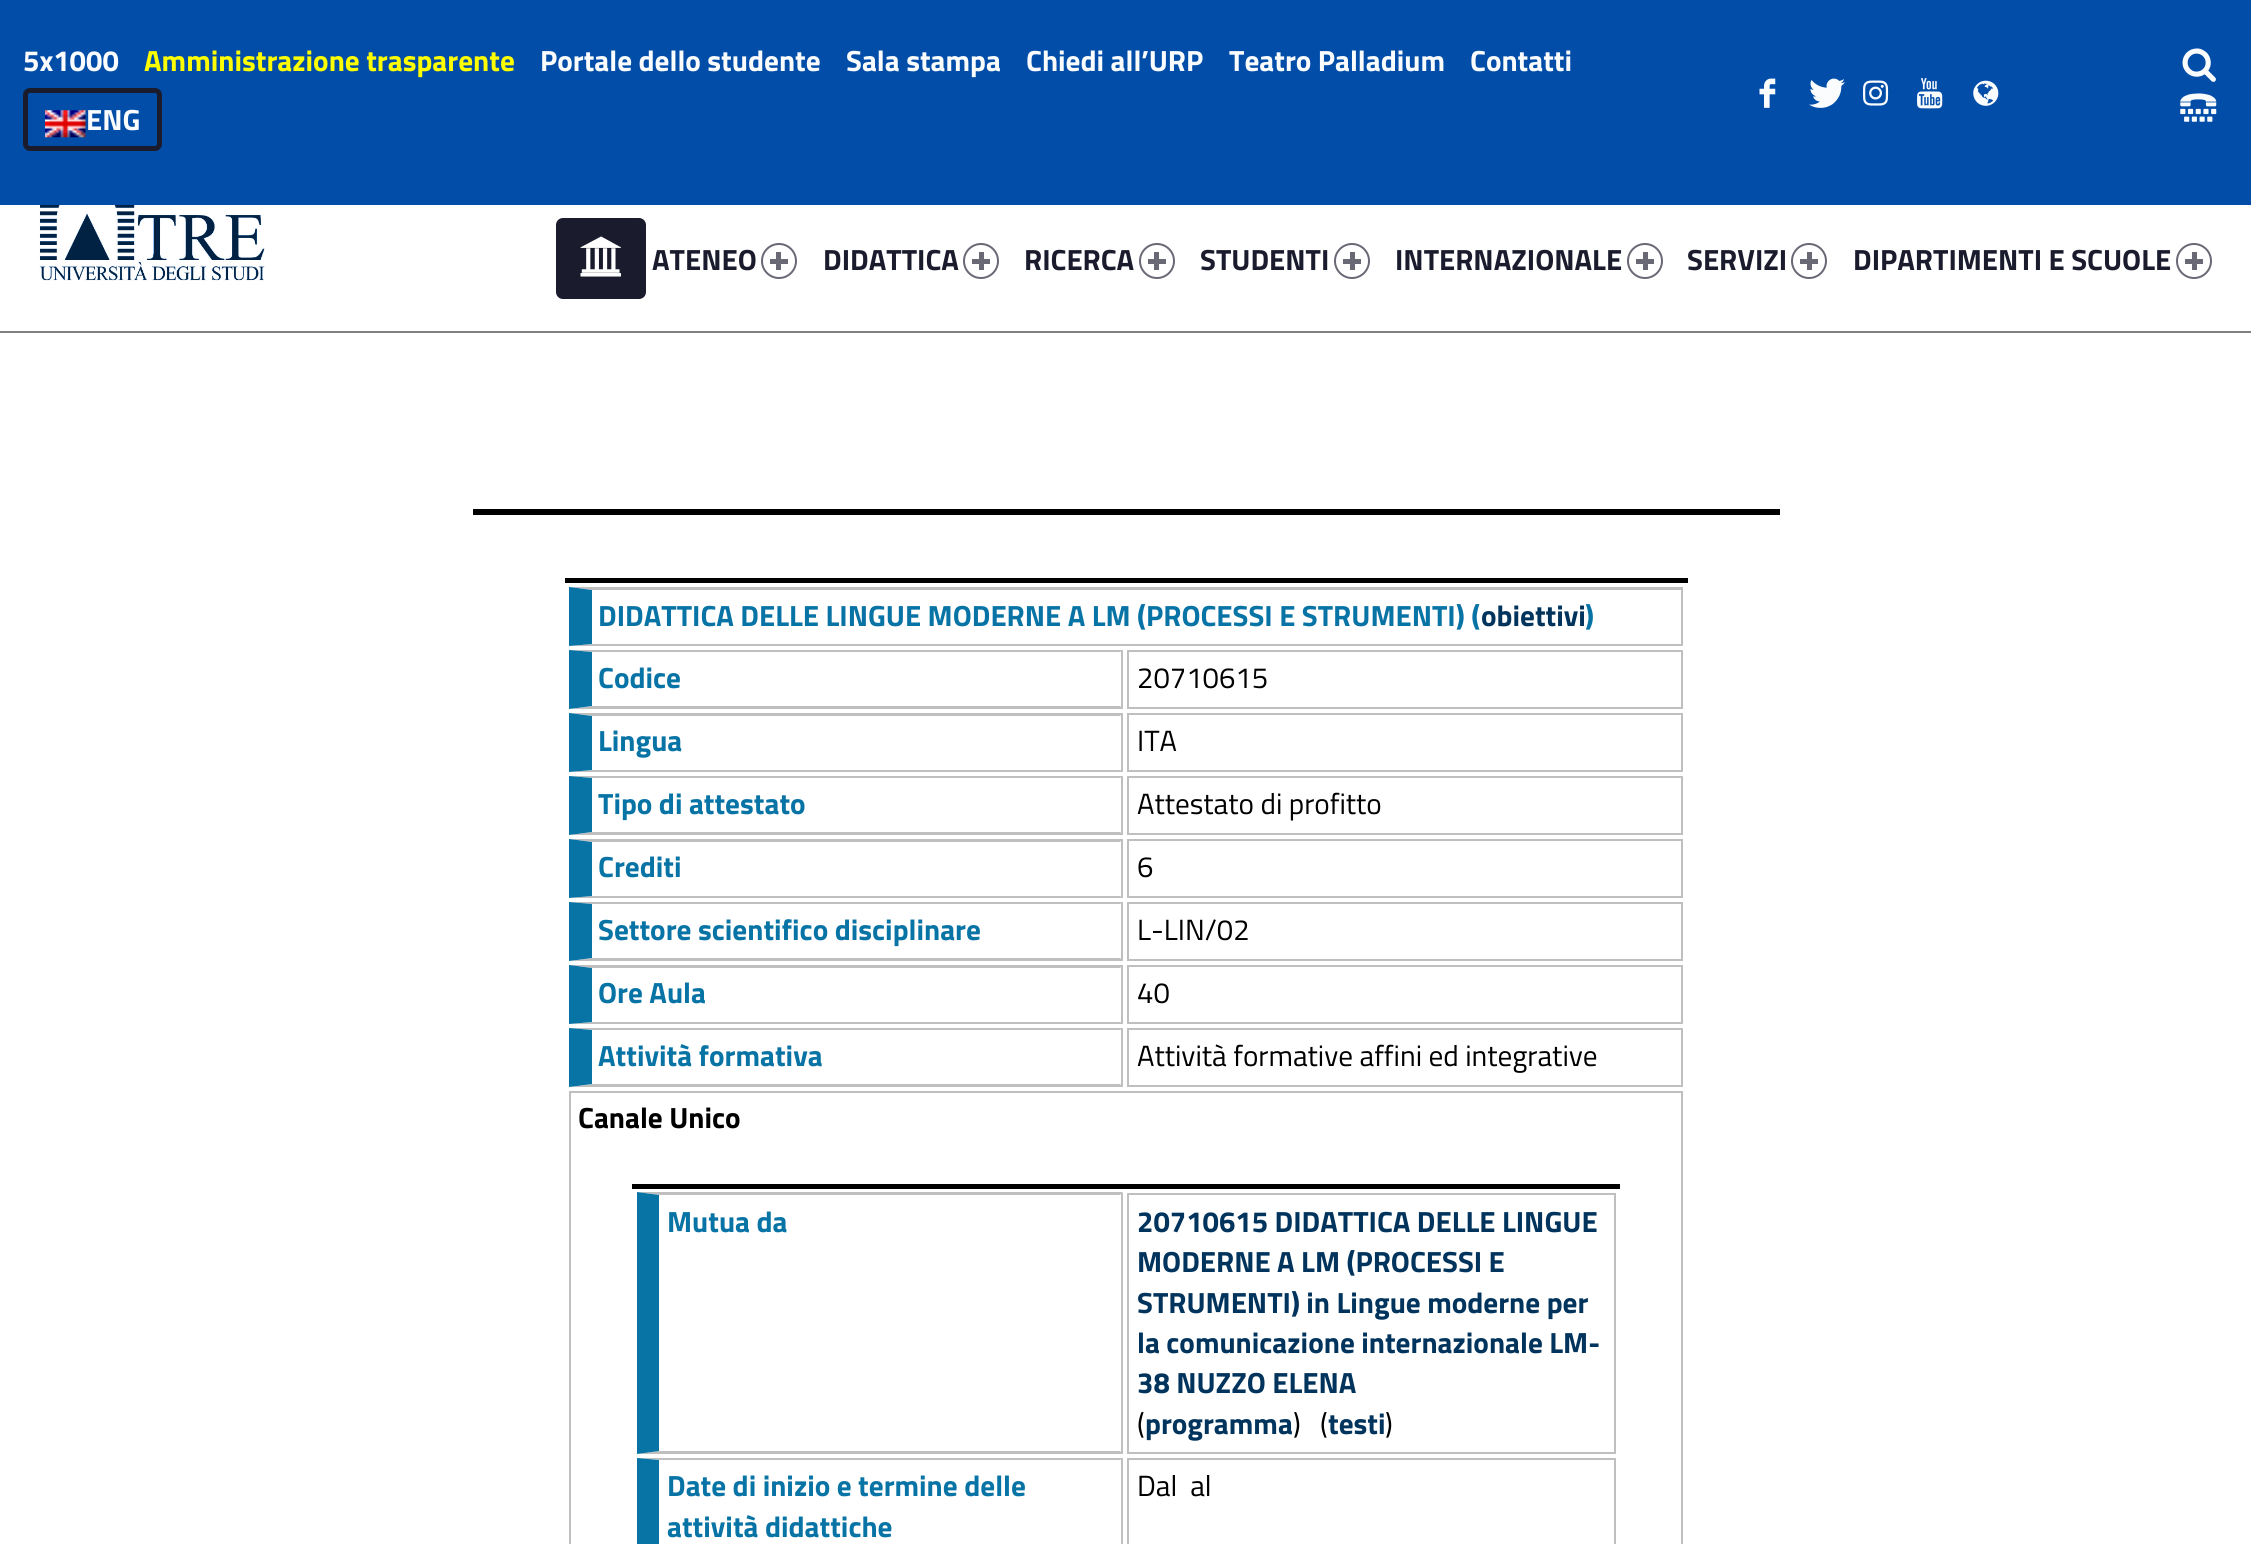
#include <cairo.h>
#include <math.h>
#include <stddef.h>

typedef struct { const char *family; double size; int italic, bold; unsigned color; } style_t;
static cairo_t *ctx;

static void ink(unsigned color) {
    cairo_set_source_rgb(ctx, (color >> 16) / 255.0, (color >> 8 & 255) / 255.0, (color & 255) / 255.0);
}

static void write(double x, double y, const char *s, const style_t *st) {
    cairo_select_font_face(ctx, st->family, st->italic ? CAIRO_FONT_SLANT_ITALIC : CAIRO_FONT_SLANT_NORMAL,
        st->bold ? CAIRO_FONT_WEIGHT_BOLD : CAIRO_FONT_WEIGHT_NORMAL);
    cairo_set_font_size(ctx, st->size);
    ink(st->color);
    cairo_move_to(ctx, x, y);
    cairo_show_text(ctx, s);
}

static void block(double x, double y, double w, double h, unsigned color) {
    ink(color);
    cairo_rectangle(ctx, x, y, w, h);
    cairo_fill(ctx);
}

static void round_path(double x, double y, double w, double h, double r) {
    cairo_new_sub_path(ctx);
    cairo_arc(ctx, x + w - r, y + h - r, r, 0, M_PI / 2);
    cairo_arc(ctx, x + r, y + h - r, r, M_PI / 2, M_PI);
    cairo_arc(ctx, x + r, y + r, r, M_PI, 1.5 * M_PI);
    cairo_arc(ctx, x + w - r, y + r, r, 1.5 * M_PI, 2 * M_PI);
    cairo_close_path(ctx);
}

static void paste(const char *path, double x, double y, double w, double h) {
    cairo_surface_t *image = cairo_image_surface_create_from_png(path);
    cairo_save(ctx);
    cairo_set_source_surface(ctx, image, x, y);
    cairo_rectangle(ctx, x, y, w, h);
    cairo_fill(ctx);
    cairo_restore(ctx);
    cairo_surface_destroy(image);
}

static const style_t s1 = {"Titillium Web", 29.25, 0, 1, 0xfafcfe};
static const style_t s2 = {"Titillium Web", 29.25, 0, 1, 0xffff00};
static const style_t s3 = {"Titillium Web", 29.25, 0, 1, 0x1a1c2e};
static const style_t s4 = {"Titillium Web", 29.25, 0, 1, 0x0873a5};
static const style_t s5 = {"Titillium Web", 29.25, 0, 1, 0x01345d};
static const style_t s6 = {"Titillium Web", 29.25, 0, 0, 0x000000};
static const style_t s7 = {"Titillium Web", 29.25, 0, 1, 0x000000};

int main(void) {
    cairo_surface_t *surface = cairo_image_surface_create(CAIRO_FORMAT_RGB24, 2251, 1544);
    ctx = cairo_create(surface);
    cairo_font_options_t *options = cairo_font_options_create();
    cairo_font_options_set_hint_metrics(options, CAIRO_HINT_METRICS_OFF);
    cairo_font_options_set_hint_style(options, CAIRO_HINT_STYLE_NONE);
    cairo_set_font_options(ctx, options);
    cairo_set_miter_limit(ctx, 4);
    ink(0xffffff);
    cairo_paint(ctx);
    block(0, 0, 2251, 205, 0x024da8);
    write(23, 71, "5x1000", &s1);
    write(144, 71, "Amministrazione trasparente", &s2);
    write(540, 71, "Portale dello studente", &s1);
    write(846, 71, "Sala stampa", &s1);
    write(1026, 71, "Chiedi all’URP", &s1);
    write(1229, 71, "Teatro Palladium", &s1);
    write(1470, 71, "Contatti", &s1);
    round_path(25.5, 90.5, 134, 58, 4.5);
    ink(0x1a1c2e);
    cairo_set_line_width(ctx, 5);
    cairo_stroke(ctx);
    paste("pic1.png", 45, 110, 41, 28);
    write(86, 130, "ENG", &s1);
    paste("pic2.png", 1759, 78, 17, 30);
    paste("pic3.png", 1809, 78, 36, 30);
    paste("pic4.png", 1863, 80, 26, 26);
    paste("pic5.png", 1917, 78, 26, 31);
    paste("pic6.png", 1973, 80, 26, 26);
    paste("pic7.png", 2182, 48, 34, 34);
    paste("pic8.png", 2180, 93, 37, 29);
    paste("pic9.png", 38, 205, 227, 76);
    ink(0x1a1c2e);
    round_path(556, 218, 90, 81, 7);
    cairo_fill(ctx);
    paste("pic10.png", 580, 236, 41, 41);
    write(652, 270, "ATENEO", &s3);
    cairo_new_path(ctx);
    cairo_arc(ctx, 779, 261, 17, 0, 2 * M_PI);
    ink(0x686975);
    cairo_set_line_width(ctx, 2);
    cairo_stroke(ctx);
    block(770, 259, 18, 5, 0x686975);
    block(776, 252, 5, 18, 0x686975);
    write(823, 270, "DIDATTICA", &s3);
    cairo_new_path(ctx);
    cairo_arc(ctx, 981, 261, 17, 0, 2 * M_PI);
    ink(0x686975);
    cairo_stroke(ctx);
    block(972, 259, 18, 5, 0x686975);
    block(979, 252, 5, 18, 0x686975);
    write(1024, 270, "RICERCA", &s3);
    cairo_new_path(ctx);
    cairo_arc(ctx, 1157, 261, 17, 0, 2 * M_PI);
    ink(0x686975);
    cairo_stroke(ctx);
    block(1148, 259, 18, 5, 0x686975);
    block(1154, 252, 5, 18, 0x686975);
    write(1200, 270, "STUDENTI", &s3);
    cairo_new_path(ctx);
    cairo_arc(ctx, 1352, 261, 17, 0, 2 * M_PI);
    ink(0x686975);
    cairo_stroke(ctx);
    block(1343, 259, 18, 5, 0x686975);
    block(1350, 252, 5, 18, 0x686975);
    write(1395, 270, "INTERNAZIONALE", &s3);
    cairo_new_path(ctx);
    cairo_arc(ctx, 1645, 261, 17, 0, 2 * M_PI);
    ink(0x686975);
    cairo_stroke(ctx);
    block(1636, 259, 18, 5, 0x686975);
    block(1643, 252, 5, 18, 0x686975);
    write(1687, 270, "SERVIZI", &s3);
    cairo_new_path(ctx);
    cairo_arc(ctx, 1809, 261, 17, 0, 2 * M_PI);
    ink(0x686975);
    cairo_stroke(ctx);
    block(1800, 259, 18, 5, 0x686975);
    block(1807, 252, 5, 18, 0x686975);
    write(1853, 270, "DIPARTIMENTI E SCUOLE", &s3);
    cairo_new_path(ctx);
    cairo_arc(ctx, 2194, 261, 17, 0, 2 * M_PI);
    ink(0x686975);
    cairo_stroke(ctx);
    block(2185, 259, 18, 5, 0x686975);
    block(2192, 252, 5, 18, 0x686975);
    block(0, 331, 2251, 2, 0x808080);
    block(473, 509, 1307, 6, 0x000000);
    block(565, 578, 1123, 5, 0x000000);
    ink(0xbfbfbf);
    cairo_new_path(ctx);
    cairo_move_to(ctx, 569, 587);
    cairo_line_to(ctx, 1683, 587);
    cairo_line_to(ctx, 1681, 590);
    cairo_line_to(ctx, 592, 590);
    cairo_close_path(ctx);
    cairo_fill(ctx);
    block(1681, 587, 2, 59, 0xbfbfbf);
    cairo_new_path(ctx);
    cairo_move_to(ctx, 1683, 646);
    cairo_line_to(ctx, 569, 646);
    cairo_line_to(ctx, 592, 644);
    cairo_line_to(ctx, 1681, 644);
    cairo_close_path(ctx);
    cairo_fill(ctx);
    ink(0x0873a5);
    cairo_new_path(ctx);
    cairo_move_to(ctx, 569, 646);
    cairo_line_to(ctx, 569, 587);
    cairo_line_to(ctx, 592, 590);
    cairo_line_to(ctx, 592, 644);
    cairo_close_path(ctx);
    cairo_fill(ctx);
    write(598, 626, "DIDATTICA DELLE LINGUE MODERNE A LM (PROCESSI E STRUMENTI) (", &s4);
    write(1481, 626, "obiettivi", &s5);
    write(1585, 626, ")", &s4);
    ink(0xbfbfbf);
    cairo_new_path(ctx);
    cairo_move_to(ctx, 569, 650);
    cairo_line_to(ctx, 1123, 650);
    cairo_line_to(ctx, 1120, 652);
    cairo_line_to(ctx, 592, 652);
    cairo_close_path(ctx);
    cairo_fill(ctx);
    block(1121, 650, 2, 59, 0xbfbfbf);
    cairo_new_path(ctx);
    cairo_move_to(ctx, 1123, 709);
    cairo_line_to(ctx, 569, 709);
    cairo_line_to(ctx, 592, 706);
    cairo_line_to(ctx, 1120, 706);
    cairo_close_path(ctx);
    cairo_fill(ctx);
    ink(0x0873a5);
    cairo_new_path(ctx);
    cairo_move_to(ctx, 569, 709);
    cairo_line_to(ctx, 569, 650);
    cairo_line_to(ctx, 592, 652);
    cairo_line_to(ctx, 592, 706);
    cairo_close_path(ctx);
    cairo_fill(ctx);
    write(598, 688, "Codice", &s4);
    cairo_rectangle(ctx, 1128, 651, 554, 57);
    ink(0xbfbfbf);
    cairo_stroke(ctx);
    write(1137, 688, "20710615", &s6);
    ink(0xbfbfbf);
    cairo_new_path(ctx);
    cairo_move_to(ctx, 569, 713);
    cairo_line_to(ctx, 1123, 713);
    cairo_line_to(ctx, 1120, 716);
    cairo_line_to(ctx, 592, 716);
    cairo_close_path(ctx);
    cairo_fill(ctx);
    block(1121, 713, 2, 59, 0xbfbfbf);
    cairo_new_path(ctx);
    cairo_move_to(ctx, 1123, 772);
    cairo_line_to(ctx, 569, 772);
    cairo_line_to(ctx, 592, 770);
    cairo_line_to(ctx, 1120, 770);
    cairo_close_path(ctx);
    cairo_fill(ctx);
    ink(0x0873a5);
    cairo_new_path(ctx);
    cairo_move_to(ctx, 569, 772);
    cairo_line_to(ctx, 569, 713);
    cairo_line_to(ctx, 592, 716);
    cairo_line_to(ctx, 592, 770);
    cairo_close_path(ctx);
    cairo_fill(ctx);
    write(598, 751, "Lingua", &s4);
    cairo_rectangle(ctx, 1128, 714, 554, 57);
    ink(0xbfbfbf);
    cairo_stroke(ctx);
    write(1137, 751, "ITA", &s6);
    ink(0xbfbfbf);
    cairo_new_path(ctx);
    cairo_move_to(ctx, 569, 776);
    cairo_line_to(ctx, 1123, 776);
    cairo_line_to(ctx, 1120, 778);
    cairo_line_to(ctx, 592, 778);
    cairo_close_path(ctx);
    cairo_fill(ctx);
    block(1121, 776, 2, 59, 0xbfbfbf);
    cairo_new_path(ctx);
    cairo_move_to(ctx, 1123, 835);
    cairo_line_to(ctx, 569, 835);
    cairo_line_to(ctx, 592, 832);
    cairo_line_to(ctx, 1120, 832);
    cairo_close_path(ctx);
    cairo_fill(ctx);
    ink(0x0873a5);
    cairo_new_path(ctx);
    cairo_move_to(ctx, 569, 835);
    cairo_line_to(ctx, 569, 776);
    cairo_line_to(ctx, 592, 778);
    cairo_line_to(ctx, 592, 832);
    cairo_close_path(ctx);
    cairo_fill(ctx);
    write(598, 814, "Tipo di attestato", &s4);
    cairo_rectangle(ctx, 1128, 777, 554, 57);
    ink(0xbfbfbf);
    cairo_stroke(ctx);
    write(1137, 814, "Attestato di profitto", &s6);
    ink(0xbfbfbf);
    cairo_new_path(ctx);
    cairo_move_to(ctx, 569, 839);
    cairo_line_to(ctx, 1123, 839);
    cairo_line_to(ctx, 1120, 842);
    cairo_line_to(ctx, 592, 842);
    cairo_close_path(ctx);
    cairo_fill(ctx);
    block(1121, 839, 2, 59, 0xbfbfbf);
    cairo_new_path(ctx);
    cairo_move_to(ctx, 1123, 898);
    cairo_line_to(ctx, 569, 898);
    cairo_line_to(ctx, 592, 896);
    cairo_line_to(ctx, 1120, 896);
    cairo_close_path(ctx);
    cairo_fill(ctx);
    ink(0x0873a5);
    cairo_new_path(ctx);
    cairo_move_to(ctx, 569, 898);
    cairo_line_to(ctx, 569, 839);
    cairo_line_to(ctx, 592, 842);
    cairo_line_to(ctx, 592, 896);
    cairo_close_path(ctx);
    cairo_fill(ctx);
    write(598, 877, "Crediti", &s4);
    cairo_rectangle(ctx, 1128, 840, 554, 57);
    ink(0xbfbfbf);
    cairo_stroke(ctx);
    write(1137, 877, "6", &s6);
    ink(0xbfbfbf);
    cairo_new_path(ctx);
    cairo_move_to(ctx, 569, 902);
    cairo_line_to(ctx, 1123, 902);
    cairo_line_to(ctx, 1120, 904);
    cairo_line_to(ctx, 592, 904);
    cairo_close_path(ctx);
    cairo_fill(ctx);
    block(1121, 902, 2, 59, 0xbfbfbf);
    cairo_new_path(ctx);
    cairo_move_to(ctx, 1123, 961);
    cairo_line_to(ctx, 569, 961);
    cairo_line_to(ctx, 592, 958);
    cairo_line_to(ctx, 1120, 958);
    cairo_close_path(ctx);
    cairo_fill(ctx);
    ink(0x0873a5);
    cairo_new_path(ctx);
    cairo_move_to(ctx, 569, 961);
    cairo_line_to(ctx, 569, 902);
    cairo_line_to(ctx, 592, 904);
    cairo_line_to(ctx, 592, 958);
    cairo_close_path(ctx);
    cairo_fill(ctx);
    write(598, 940, "Settore scientifico disciplinare", &s4);
    cairo_rectangle(ctx, 1128, 903, 554, 57);
    ink(0xbfbfbf);
    cairo_stroke(ctx);
    write(1137, 940, "L-LIN/02", &s6);
    ink(0xbfbfbf);
    cairo_new_path(ctx);
    cairo_move_to(ctx, 569, 965);
    cairo_line_to(ctx, 1123, 965);
    cairo_line_to(ctx, 1120, 968);
    cairo_line_to(ctx, 592, 968);
    cairo_close_path(ctx);
    cairo_fill(ctx);
    block(1121, 965, 2, 59, 0xbfbfbf);
    cairo_new_path(ctx);
    cairo_move_to(ctx, 1123, 1024);
    cairo_line_to(ctx, 569, 1024);
    cairo_line_to(ctx, 592, 1022);
    cairo_line_to(ctx, 1120, 1022);
    cairo_close_path(ctx);
    cairo_fill(ctx);
    ink(0x0873a5);
    cairo_new_path(ctx);
    cairo_move_to(ctx, 569, 1024);
    cairo_line_to(ctx, 569, 965);
    cairo_line_to(ctx, 592, 968);
    cairo_line_to(ctx, 592, 1022);
    cairo_close_path(ctx);
    cairo_fill(ctx);
    write(598, 1003, "Ore Aula", &s4);
    cairo_rectangle(ctx, 1128, 966, 554, 57);
    ink(0xbfbfbf);
    cairo_stroke(ctx);
    write(1137, 1003, "40", &s6);
    ink(0xbfbfbf);
    cairo_new_path(ctx);
    cairo_move_to(ctx, 569, 1028);
    cairo_line_to(ctx, 1123, 1028);
    cairo_line_to(ctx, 1120, 1030);
    cairo_line_to(ctx, 592, 1030);
    cairo_close_path(ctx);
    cairo_fill(ctx);
    block(1121, 1028, 2, 59, 0xbfbfbf);
    cairo_new_path(ctx);
    cairo_move_to(ctx, 1123, 1087);
    cairo_line_to(ctx, 569, 1087);
    cairo_line_to(ctx, 592, 1084);
    cairo_line_to(ctx, 1120, 1084);
    cairo_close_path(ctx);
    cairo_fill(ctx);
    ink(0x0873a5);
    cairo_new_path(ctx);
    cairo_move_to(ctx, 569, 1087);
    cairo_line_to(ctx, 569, 1028);
    cairo_line_to(ctx, 592, 1030);
    cairo_line_to(ctx, 592, 1084);
    cairo_close_path(ctx);
    cairo_fill(ctx);
    write(598, 1066, "Attività formativa", &s4);
    cairo_rectangle(ctx, 1128, 1029, 554, 57);
    ink(0xbfbfbf);
    cairo_stroke(ctx);
    write(1137, 1066, "Attività formative affini ed integrative", &s6);
    cairo_rectangle(ctx, 570, 1092, 1112, 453);
    ink(0xbfbfbf);
    cairo_stroke(ctx);
    write(578, 1128, "Canale Unico", &s7);
    block(632, 1184, 988, 5, 0x000000);
    ink(0xbfbfbf);
    cairo_new_path(ctx);
    cairo_move_to(ctx, 637, 1192);
    cairo_line_to(ctx, 1123, 1192);
    cairo_line_to(ctx, 1120, 1195);
    cairo_line_to(ctx, 659, 1195);
    cairo_close_path(ctx);
    cairo_fill(ctx);
    block(1121, 1193, 2, 261, 0xbfbfbf);
    cairo_new_path(ctx);
    cairo_move_to(ctx, 1123, 1454);
    cairo_line_to(ctx, 637, 1454);
    cairo_line_to(ctx, 659, 1451);
    cairo_line_to(ctx, 1120, 1451);
    cairo_close_path(ctx);
    cairo_fill(ctx);
    ink(0x0873a5);
    cairo_new_path(ctx);
    cairo_move_to(ctx, 637, 1454);
    cairo_line_to(ctx, 637, 1192);
    cairo_line_to(ctx, 659, 1195);
    cairo_line_to(ctx, 659, 1451);
    cairo_close_path(ctx);
    cairo_fill(ctx);
    write(667, 1232, "Mutua da", &s4);
    cairo_rectangle(ctx, 1128, 1194, 487, 259);
    ink(0xbfbfbf);
    cairo_stroke(ctx);
    write(1137, 1232, "20710615 DIDATTICA DELLE LINGUE", &s5);
    write(1137, 1272, "MODERNE A LM (PROCESSI E", &s5);
    write(1137, 1313, "STRUMENTI) in Lingue moderne per", &s5);
    write(1137, 1353, "la comunicazione internazionale LM-", &s5);
    write(1137, 1393, "38 NUZZO ELENA", &s5);
    write(1137, 1434, "(", &s6);
    write(1145, 1434, "programma", &s5);
    write(1293, 1434, ")", &s6);
    write(1320, 1434, "(", &s6);
    write(1328, 1434, "testi", &s5);
    write(1385, 1434, ")", &s6);
    ink(0xbfbfbf);
    cairo_new_path(ctx);
    cairo_move_to(ctx, 637, 1458);
    cairo_line_to(ctx, 1123, 1458);
    cairo_line_to(ctx, 1120, 1460);
    cairo_line_to(ctx, 659, 1460);
    cairo_close_path(ctx);
    cairo_fill(ctx);
    block(1121, 1458, 2, 86, 0xbfbfbf);
    ink(0x0873a5);
    cairo_new_path(ctx);
    cairo_move_to(ctx, 637, 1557);
    cairo_line_to(ctx, 637, 1458);
    cairo_line_to(ctx, 659, 1460);
    cairo_line_to(ctx, 659, 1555);
    cairo_close_path(ctx);
    cairo_fill(ctx);
    write(667, 1496, "Date di inizio e termine delle", &s4);
    write(667, 1537, "attività didattiche", &s4);
    cairo_rectangle(ctx, 1128, 1459, 487, 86);
    ink(0xbfbfbf);
    cairo_stroke(ctx);
    write(1137, 1496, "Dal  al", &s6);
    cairo_surface_write_to_png(surface, "screenshot.png");
    cairo_font_options_destroy(options);
    cairo_destroy(ctx);
    cairo_surface_destroy(surface);
    return 0;
}
